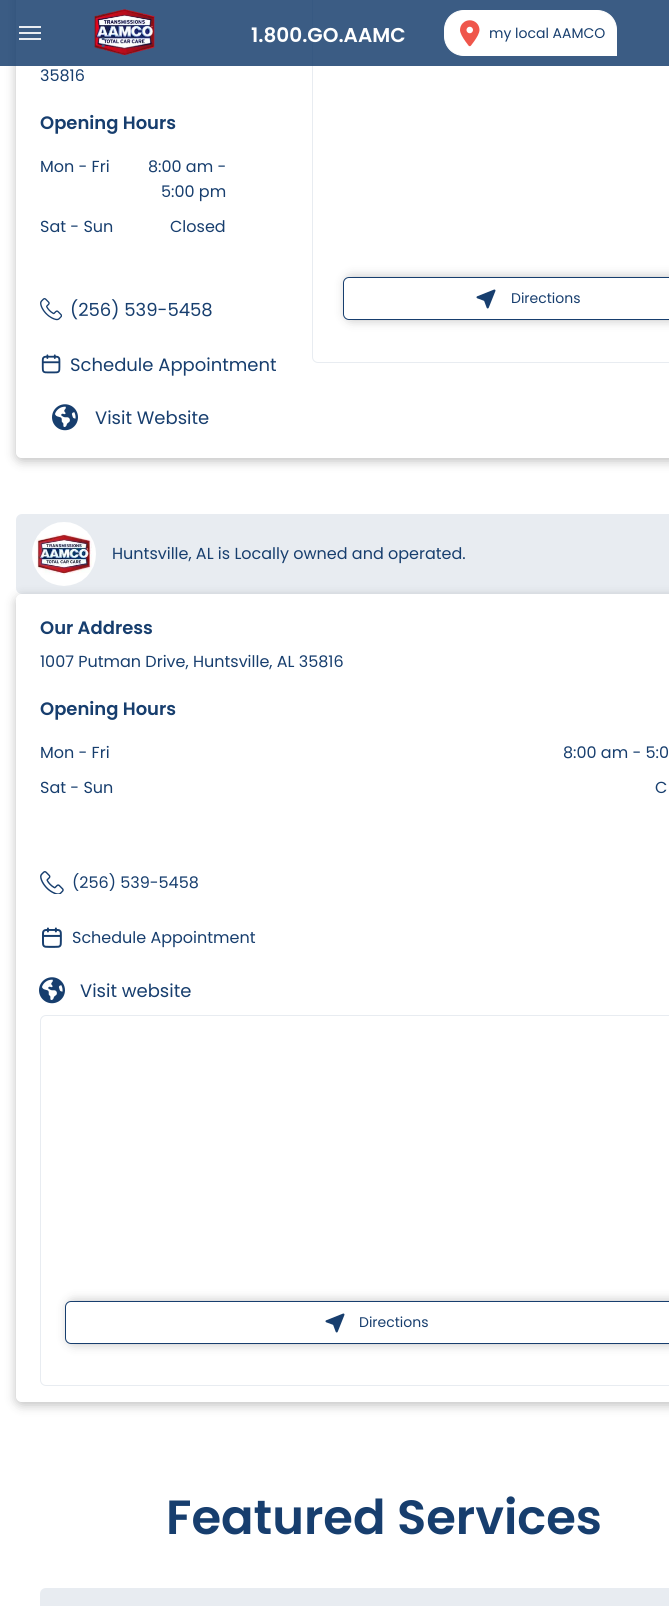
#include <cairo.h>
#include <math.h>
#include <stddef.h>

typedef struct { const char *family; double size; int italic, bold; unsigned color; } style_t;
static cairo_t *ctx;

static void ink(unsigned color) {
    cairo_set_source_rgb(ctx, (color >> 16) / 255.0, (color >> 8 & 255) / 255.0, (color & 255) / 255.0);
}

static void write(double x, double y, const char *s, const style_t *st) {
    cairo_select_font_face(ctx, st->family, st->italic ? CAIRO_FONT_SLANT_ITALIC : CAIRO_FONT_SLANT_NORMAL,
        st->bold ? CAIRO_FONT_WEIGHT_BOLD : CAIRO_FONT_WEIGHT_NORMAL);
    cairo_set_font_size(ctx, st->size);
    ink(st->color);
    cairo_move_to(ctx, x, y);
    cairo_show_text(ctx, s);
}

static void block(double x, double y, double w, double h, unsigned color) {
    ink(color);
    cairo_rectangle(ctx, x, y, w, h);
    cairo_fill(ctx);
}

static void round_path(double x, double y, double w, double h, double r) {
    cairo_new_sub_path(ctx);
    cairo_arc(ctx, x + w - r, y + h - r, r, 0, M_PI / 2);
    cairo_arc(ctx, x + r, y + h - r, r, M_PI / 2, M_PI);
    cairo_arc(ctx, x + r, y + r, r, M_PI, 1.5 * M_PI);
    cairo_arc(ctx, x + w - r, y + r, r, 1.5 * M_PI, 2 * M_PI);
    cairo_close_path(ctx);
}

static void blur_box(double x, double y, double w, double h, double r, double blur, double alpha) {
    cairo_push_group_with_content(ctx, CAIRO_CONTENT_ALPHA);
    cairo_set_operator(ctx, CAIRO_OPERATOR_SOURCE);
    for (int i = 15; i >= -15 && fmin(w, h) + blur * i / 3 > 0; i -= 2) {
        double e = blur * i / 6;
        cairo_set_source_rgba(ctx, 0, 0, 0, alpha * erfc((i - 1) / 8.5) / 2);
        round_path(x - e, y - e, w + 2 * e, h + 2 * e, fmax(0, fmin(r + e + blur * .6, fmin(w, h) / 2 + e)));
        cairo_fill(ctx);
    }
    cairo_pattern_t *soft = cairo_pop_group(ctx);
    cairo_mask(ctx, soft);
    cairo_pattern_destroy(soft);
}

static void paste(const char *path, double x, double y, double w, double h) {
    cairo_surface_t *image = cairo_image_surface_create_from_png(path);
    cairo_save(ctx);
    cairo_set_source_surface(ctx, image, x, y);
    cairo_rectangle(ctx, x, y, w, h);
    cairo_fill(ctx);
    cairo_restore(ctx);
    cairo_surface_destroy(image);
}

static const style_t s1 = {"Poppins SemiBold", 20, 0, 0, 0xffffff};
static const style_t s2 = {"Poppins", 14, 0, 0, 0x173e6e};
static const style_t s3 = {"Poppins", 16, 0, 0, 0x173e6e};
static const style_t s4 = {"Poppins SemiBold", 18, 0, 0, 0x173e6e};
static const style_t s5 = {"Poppins", 18, 0, 0, 0x173e6e};
static const style_t s6 = {"Poppins SemiBold", 48, 0, 0, 0x173e6e};
static const style_t s7 = {"Liberation Sans", 19, 0, 1, 0x475b81};

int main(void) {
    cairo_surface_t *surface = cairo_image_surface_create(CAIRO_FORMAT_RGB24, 669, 1606);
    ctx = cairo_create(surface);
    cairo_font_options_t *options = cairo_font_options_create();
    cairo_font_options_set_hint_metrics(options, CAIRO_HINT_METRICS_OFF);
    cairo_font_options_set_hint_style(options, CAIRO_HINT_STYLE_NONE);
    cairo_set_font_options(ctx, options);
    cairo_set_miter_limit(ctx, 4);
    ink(0xffffff);
    cairo_paint(ctx);
    cairo_save(ctx);
    cairo_set_fill_rule(ctx, CAIRO_FILL_RULE_EVEN_ODD);
    cairo_new_path(ctx);
    cairo_move_to(ctx, 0, 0);
    cairo_line_to(ctx, 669, 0);
    cairo_line_to(ctx, 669, 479);
    cairo_line_to(ctx, 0, 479);
    cairo_close_path(ctx);
    cairo_move_to(ctx, 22, -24);
    cairo_line_to(ctx, 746, -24);
    cairo_curve_to(ctx, 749.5, -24, 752, -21.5, 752, -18);
    cairo_line_to(ctx, 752, 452);
    cairo_curve_to(ctx, 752, 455.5, 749.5, 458, 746, 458);
    cairo_line_to(ctx, 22, 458);
    cairo_curve_to(ctx, 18.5, 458, 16, 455.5, 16, 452);
    cairo_line_to(ctx, 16, -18);
    cairo_curve_to(ctx, 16, -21.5, 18.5, -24, 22, -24);
    cairo_close_path(ctx);
    cairo_clip(ctx);
    ink(0x000000);
    blur_box(16, -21, 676, 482, 6, 5.5, 0.25);
    cairo_restore(ctx);
    round_path(312.5, -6.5, 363, 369, 5.5);
    ink(0xe8ecf1);
    cairo_set_line_width(ctx, 1);
    cairo_stroke(ctx);
    cairo_set_source_rgba(ctx, 0.09, 0.243, 0.431, 0.84);
    cairo_rectangle(ctx, 0, 0, 669, 66);
    cairo_fill(ctx);
    block(19, 26, 22, 2, 0xe8ecf1);
    block(19, 32, 22, 2, 0xe8ecf1);
    block(19, 38, 22, 2, 0xe8ecf1);
    paste("pic1.png", 94, 9, 61, 47);
    write(251, 42, "1.800.GO.AAMC", &s1);
    cairo_new_path(ctx);
    cairo_move_to(ctx, 464, 10.5);
    cairo_line_to(ctx, 597, 10.5);
    cairo_curve_to(ctx, 608, 10.5, 616.5, 19, 616.5, 30);
    cairo_line_to(ctx, 616.5, 55.5);
    cairo_line_to(ctx, 464, 55.5);
    cairo_curve_to(ctx, 453, 55.5, 444.5, 47, 444.5, 36);
    cairo_line_to(ctx, 444.5, 30);
    cairo_curve_to(ctx, 444.5, 19, 453, 10.5, 464, 10.5);
    cairo_close_path(ctx);
    cairo_fill_preserve(ctx);
    cairo_stroke(ctx);
    paste("pic2.png", 460, 20, 20, 27);
    write(489, 38, "my local AAMCO", &s2);
    write(40, 81, "35816", &s3);
    write(40, 129, "Opening Hours", &s4);
    write(40, 172, "Mon - Fri", &s3);
    write(148, 172, "8:00 am -", &s3);
    write(161, 197, "5:00 pm", &s3);
    write(40, 232, "Sat - Sun", &s3);
    write(170, 232, "Closed", &s3);
    paste("pic3.png", 40, 298, 22, 23);
    write(70, 316, "(256) 539-5458", &s5);
    paste("pic4.png", 41, 354, 20, 20);
    write(70, 371, "Schedule Appointment", &s5);
    paste("pic5.png", 52, 404, 26, 27);
    write(95, 424, "Visit Website", &s5);
    ink(0x000000);
    blur_box(346, 277, 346, 43, 6, 5.5, 0.25);
    ink(0xffffff);
    round_path(343.5, 277.5, 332, 42, 5.5);
    cairo_fill_preserve(ctx);
    ink(0x173e6e);
    cairo_stroke(ctx);
    paste("pic6.png", 476, 289, 20, 20);
    write(511, 303, "Directions", &s2);
    ink(0xe8ecf1);
    round_path(16, 514, 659, 80, 6);
    cairo_fill(ctx);
    paste("pic7.png", 32, 522, 64, 64);
    write(112, 559, "Huntsville, AL is Locally owned and operated.", &s3);
    cairo_save(ctx);
    cairo_set_fill_rule(ctx, CAIRO_FILL_RULE_EVEN_ODD);
    cairo_new_path(ctx);
    cairo_move_to(ctx, 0, 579);
    cairo_line_to(ctx, 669, 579);
    cairo_line_to(ctx, 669, 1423);
    cairo_line_to(ctx, 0, 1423);
    cairo_close_path(ctx);
    cairo_move_to(ctx, 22, 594);
    cairo_line_to(ctx, 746, 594);
    cairo_curve_to(ctx, 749.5, 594, 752, 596.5, 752, 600);
    cairo_line_to(ctx, 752, 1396);
    cairo_curve_to(ctx, 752, 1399.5, 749.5, 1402, 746, 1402);
    cairo_line_to(ctx, 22, 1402);
    cairo_curve_to(ctx, 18.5, 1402, 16, 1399.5, 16, 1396);
    cairo_line_to(ctx, 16, 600);
    cairo_curve_to(ctx, 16, 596.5, 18.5, 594, 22, 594);
    cairo_close_path(ctx);
    cairo_clip(ctx);
    ink(0x000000);
    blur_box(16, 597, 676, 808, 6, 5.5, 0.25);
    cairo_restore(ctx);
    write(40, 634, "Our Address", &s4);
    write(40, 667, "1007 Putman Drive, Huntsville, AL 35816", &s3);
    write(40, 715, "Opening Hours", &s4);
    write(40, 758, "Mon - Fri", &s3);
    write(563, 758, "8:00 am - 5:0", &s3);
    write(40, 793, "Sat - Sun", &s3);
    write(655, 793, "C", &s3);
    paste("pic8.png", 40, 871, 24, 23);
    write(72, 888, "(256) 539-5458", &s3);
    paste("pic9.png", 42, 927, 20, 21);
    write(72, 943, "Schedule Appointment", &s3);
    paste("pic5.png", 39, 977, 26, 27);
    write(80, 997, "Visit website", &s5);
    round_path(40.5, 1015.5, 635, 370, 5.5);
    ink(0xe8ecf1);
    cairo_stroke(ctx);
    ink(0x000000);
    blur_box(68, 1301, 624, 43, 6, 5.5, 0.25);
    ink(0xffffff);
    round_path(65.5, 1301.5, 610, 42, 5.5);
    cairo_fill_preserve(ctx);
    ink(0x173e6e);
    cairo_stroke(ctx);
    paste("pic6.png", 325, 1313, 20, 20);
    write(359, 1327, "Directions", &s2);
    write(166, 1534, "Featured Services", &s6);
    ink(0xe8ecf1);
    cairo_new_path(ctx);
    cairo_move_to(ctx, 46, 1588);
    cairo_line_to(ctx, 669, 1588);
    cairo_curve_to(ctx, 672.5, 1588, 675, 1590.5, 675, 1594);
    cairo_line_to(ctx, 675, 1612);
    cairo_line_to(ctx, 40, 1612);
    cairo_line_to(ctx, 40, 1594);
    cairo_curve_to(ctx, 40, 1590.5, 42.5, 1588, 46, 1588);
    cairo_close_path(ctx);
    cairo_fill(ctx);
    write(100, 47, ":", &s7);
    cairo_surface_write_to_png(surface, "screenshot.png");
    cairo_font_options_destroy(options);
    cairo_destroy(ctx);
    cairo_surface_destroy(surface);
    return 0;
}
